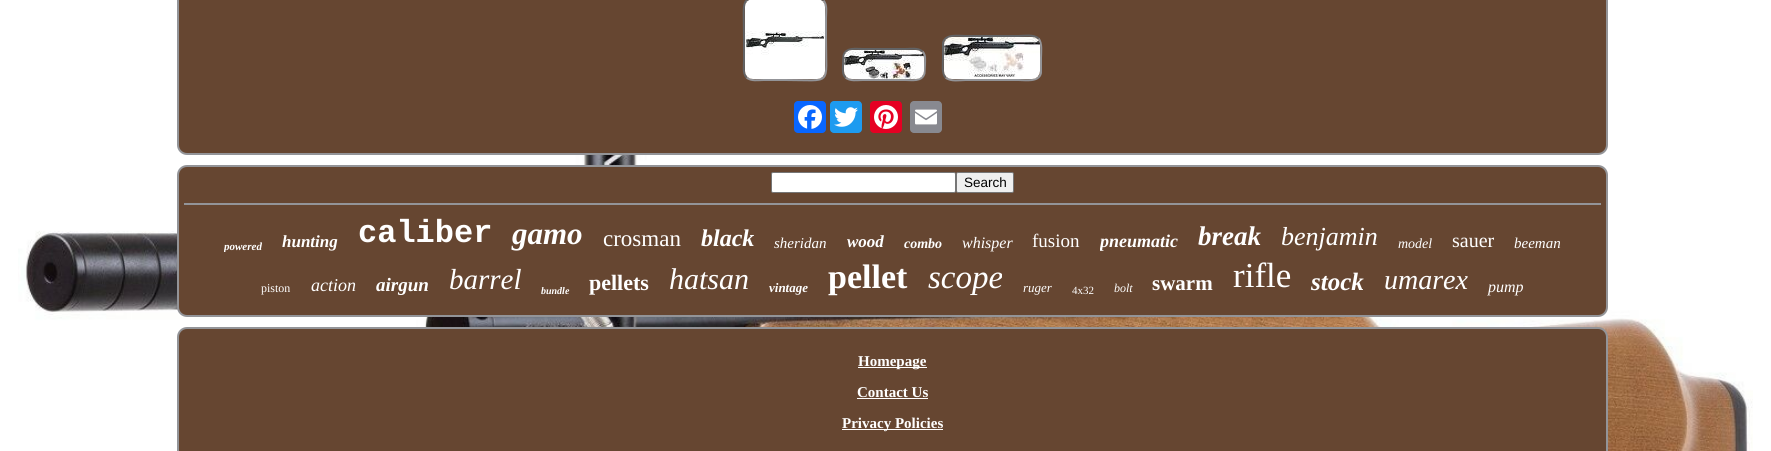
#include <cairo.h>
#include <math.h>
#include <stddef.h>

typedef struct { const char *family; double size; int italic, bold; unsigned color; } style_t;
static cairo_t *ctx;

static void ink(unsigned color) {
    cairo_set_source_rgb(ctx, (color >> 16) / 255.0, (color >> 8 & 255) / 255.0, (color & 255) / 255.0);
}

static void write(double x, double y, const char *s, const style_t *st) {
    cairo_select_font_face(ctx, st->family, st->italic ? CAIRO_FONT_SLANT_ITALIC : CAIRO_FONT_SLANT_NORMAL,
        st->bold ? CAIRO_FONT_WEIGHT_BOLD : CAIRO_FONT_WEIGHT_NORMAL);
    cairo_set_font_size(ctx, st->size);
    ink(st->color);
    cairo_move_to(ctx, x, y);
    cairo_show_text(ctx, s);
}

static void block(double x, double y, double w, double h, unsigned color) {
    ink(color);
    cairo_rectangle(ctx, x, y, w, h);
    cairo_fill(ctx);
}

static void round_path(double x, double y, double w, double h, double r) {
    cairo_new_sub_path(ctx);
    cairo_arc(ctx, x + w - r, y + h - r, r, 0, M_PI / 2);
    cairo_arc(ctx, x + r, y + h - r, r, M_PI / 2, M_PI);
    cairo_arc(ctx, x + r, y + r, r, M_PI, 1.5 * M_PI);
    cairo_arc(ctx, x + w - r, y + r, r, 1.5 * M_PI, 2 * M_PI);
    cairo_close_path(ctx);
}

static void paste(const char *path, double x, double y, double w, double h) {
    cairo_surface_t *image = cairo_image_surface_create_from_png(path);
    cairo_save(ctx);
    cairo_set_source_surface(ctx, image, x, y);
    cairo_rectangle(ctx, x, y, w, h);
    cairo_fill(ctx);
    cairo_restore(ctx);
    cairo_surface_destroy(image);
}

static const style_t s1 = {"Liberation Sans", 13.5, 0, 0, 0x000000};
static const style_t s2 = {"Liberation Serif", 11, 1, 1, 0xffffff};
static const style_t s3 = {"Liberation Serif", 17, 1, 1, 0xffffff};
static const style_t s4 = {"Liberation Mono", 32, 0, 1, 0xffffff};
static const style_t s5 = {"Liberation Serif", 31, 1, 1, 0xffffff};
static const style_t s6 = {"Liberation Serif", 23, 0, 0, 0xffffff};
static const style_t s7 = {"Liberation Serif", 24, 1, 1, 0xffffff};
static const style_t s8 = {"Liberation Serif", 15, 1, 0, 0xffffff};
static const style_t s9 = {"Liberation Serif", 14, 1, 1, 0xffffff};
static const style_t s10 = {"Liberation Serif", 16, 1, 0, 0xffffff};
static const style_t s11 = {"Liberation Serif", 19, 0, 0, 0xffffff};
static const style_t s12 = {"Liberation Serif", 18, 1, 1, 0xffffff};
static const style_t s13 = {"Liberation Serif", 27, 1, 1, 0xffffff};
static const style_t s14 = {"Liberation Serif", 26, 1, 0, 0xffffff};
static const style_t s15 = {"Liberation Serif", 14, 1, 0, 0xffffff};
static const style_t s16 = {"Liberation Serif", 20, 0, 0, 0xffffff};
static const style_t s17 = {"Liberation Serif", 12, 0, 0, 0xffffff};
static const style_t s18 = {"Liberation Serif", 18, 1, 0, 0xffffff};
static const style_t s19 = {"Liberation Serif", 19, 1, 1, 0xffffff};
static const style_t s20 = {"Liberation Serif", 29, 1, 0, 0xffffff};
static const style_t s21 = {"Liberation Serif", 10, 1, 1, 0xffffff};
static const style_t s22 = {"Liberation Serif", 22, 0, 1, 0xffffff};
static const style_t s23 = {"Liberation Serif", 30, 1, 0, 0xffffff};
static const style_t s24 = {"Liberation Serif", 13, 1, 1, 0xffffff};
static const style_t s25 = {"Liberation Serif", 34, 0, 1, 0xffffff};
static const style_t s26 = {"Liberation Serif", 33, 1, 0, 0xffffff};
static const style_t s27 = {"Liberation Serif", 13, 1, 0, 0xffffff};
static const style_t s28 = {"Liberation Serif", 11, 0, 0, 0xffffff};
static const style_t s29 = {"Liberation Serif", 12, 1, 0, 0xffffff};
static const style_t s30 = {"Liberation Serif", 21, 0, 1, 0xffffff};
static const style_t s31 = {"Liberation Serif", 35, 0, 0, 0xffffff};
static const style_t s32 = {"Liberation Serif", 25, 1, 1, 0xffffff};
static const style_t s33 = {"Liberation Serif", 28, 1, 0, 0xffffff};
static const style_t s34 = {"Liberation Serif", 15, 0, 1, 0xffffff};

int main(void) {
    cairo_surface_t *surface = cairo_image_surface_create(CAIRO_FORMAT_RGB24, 1771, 451);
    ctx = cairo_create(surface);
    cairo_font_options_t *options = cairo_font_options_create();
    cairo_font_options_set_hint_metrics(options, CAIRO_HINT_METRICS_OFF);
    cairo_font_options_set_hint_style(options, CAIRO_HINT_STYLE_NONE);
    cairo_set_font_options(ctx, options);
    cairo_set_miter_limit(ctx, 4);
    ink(0xffffff);
    cairo_paint(ctx);
    paste("pic1.png", 18, 0, 1735, 451);
    ink(0x664631);
    round_path(178, -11, 1429, 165, 9);
    cairo_fill_preserve(ctx);
    ink(0x939498);
    cairo_stroke(ctx);
    cairo_new_path(ctx);
    cairo_move_to(ctx, 823.5, 0.5);
    cairo_curve_to(ctx, 827.5, 5, 826, 12.5, 826, 17.5);
    cairo_line_to(ctx, 826, 39);
    cairo_curve_to(ctx, 826, 87, 833, 80, 785, 80);
    cairo_line_to(ctx, 763.5, 80);
    cairo_curve_to(ctx, 758.5, 80, 751, 81.5, 746.5, 77.5);
    cairo_stroke(ctx);
    cairo_new_path(ctx);
    cairo_move_to(ctx, 746.5, 77.5);
    cairo_curve_to(ctx, 742.5, 73, 744, 65.5, 744, 60.5);
    cairo_line_to(ctx, 744, 39);
    cairo_curve_to(ctx, 744, -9, 737, -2, 785, -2);
    cairo_line_to(ctx, 806.5, -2);
    cairo_curve_to(ctx, 811.5, -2, 819, -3.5, 823.5, 0.5);
    ink(0x626365);
    cairo_stroke(ctx);
    paste("pic2.png", 745, 0, 80, 79);
    cairo_new_path(ctx);
    cairo_move_to(ctx, 922.5, 51.5);
    cairo_curve_to(ctx, 926, 55, 925, 60, 925, 64.5);
    cairo_line_to(ctx, 924.5, 73.5);
    cairo_curve_to(ctx, 922, 82, 912, 80, 905.5, 80);
    cairo_line_to(ctx, 862.5, 80);
    cairo_curve_to(ctx, 857.5, 80, 850, 81.5, 845.5, 77.5);
    ink(0x939498);
    cairo_stroke(ctx);
    cairo_new_path(ctx);
    cairo_move_to(ctx, 845.5, 77.5);
    cairo_curve_to(ctx, 842, 74, 843, 69, 843, 64.5);
    cairo_line_to(ctx, 843.5, 55.5);
    cairo_curve_to(ctx, 846, 47, 856, 49, 862.5, 49);
    cairo_line_to(ctx, 905.5, 49);
    cairo_curve_to(ctx, 910.5, 49, 918, 47.5, 922.5, 51.5);
    ink(0x626365);
    cairo_stroke(ctx);
    paste("pic3.png", 844, 50, 80, 29);
    cairo_new_path(ctx);
    cairo_move_to(ctx, 1038.5, 38.5);
    cairo_curve_to(ctx, 1042.5, 43, 1041, 52.5, 1041, 58);
    cairo_line_to(ctx, 1041, 73);
    cairo_curve_to(ctx, 1039, 82.5, 1025.5, 80, 1018.5, 80);
    cairo_line_to(ctx, 965.5, 80);
    cairo_curve_to(ctx, 960.5, 80, 950.5, 82, 945.5, 77.5);
    ink(0x939498);
    cairo_stroke(ctx);
    cairo_new_path(ctx);
    cairo_move_to(ctx, 945.5, 77.5);
    cairo_curve_to(ctx, 941.5, 73, 943, 63.5, 943, 58);
    cairo_line_to(ctx, 943, 43);
    cairo_curve_to(ctx, 945, 33.5, 958.5, 36, 965.5, 36);
    cairo_line_to(ctx, 1018.5, 36);
    cairo_curve_to(ctx, 1023.5, 36, 1033.5, 34, 1038.5, 38.5);
    ink(0x626365);
    cairo_stroke(ctx);
    paste("pic4.png", 944, 37, 96, 42);
    ink(0x0866ff);
    round_path(794, 101, 32, 32, 4);
    cairo_fill(ctx);
    paste("pic5.png", 798, 105, 24, 24);
    ink(0x1d9bf0);
    round_path(830, 101, 32, 32, 4);
    cairo_fill(ctx);
    paste("pic6.png", 834, 107, 24, 20);
    ink(0xe60023);
    round_path(870, 101, 32, 32, 4);
    cairo_fill(ctx);
    paste("pic7.png", 874, 105, 24, 24);
    ink(0x888990);
    round_path(910, 101, 32, 32, 4);
    cairo_fill(ctx);
    paste("pic8.png", 915, 109, 22, 16);
    ink(0x664631);
    round_path(178, 166, 1429, 150, 9);
    cairo_fill_preserve(ctx);
    ink(0x939498);
    cairo_stroke(ctx);
    ink(0xffffff);
    round_path(771.5, 172.5, 184, 20, 1.5);
    cairo_fill_preserve(ctx);
    ink(0x767676);
    cairo_set_line_width(ctx, 1);
    cairo_stroke(ctx);
    ink(0xefefef);
    round_path(956.5, 172.5, 57, 20, 1.5);
    cairo_fill_preserve(ctx);
    ink(0x767676);
    cairo_stroke(ctx);
    write(964, 187, "Search", &s1);
    block(184, 203, 1417, 2, 0x939498);
    cairo_save(ctx);
    cairo_rectangle(ctx, 224, 240, 38, 12);
    cairo_clip(ctx);
    write(224, 250, "powered", &s2);
    cairo_restore(ctx);
    write(282, 247, "hunting", &s3);
    write(358, 242, "caliber", &s4);
    write(512, 244, "gamo", &s5);
    write(603, 246, "crosman", &s6);
    write(701, 246, "black", &s7);
    write(774, 248, "sheridan", &s8);
    write(847, 247, "wood", &s3);
    cairo_save(ctx);
    cairo_rectangle(ctx, 904, 236, 38, 16);
    cairo_clip(ctx);
    write(904, 248, "combo", &s9);
    cairo_restore(ctx);
    write(962, 248, "whisper", &s10);
    write(1032, 247, "fusion", &s11);
    cairo_save(ctx);
    cairo_rectangle(ctx, 1100, 231, 78, 21);
    cairo_clip(ctx);
    write(1100, 247, "pneumatic", &s12);
    cairo_restore(ctx);
    write(1198, 245, "break", &s13);
    write(1281, 245, "benjamin", &s14);
    write(1398, 248, "model", &s15);
    write(1452, 247, "sauer", &s16);
    write(1514, 248, "beeman", &s8);
    write(261, 292, "piston", &s17);
    write(311, 291, "action", &s18);
    write(376, 291, "airgun", &s19);
    write(449, 289, "barrel", &s20);
    write(541, 294, "bundle", &s21);
    write(589, 290, "pellets", &s22);
    write(669, 289, "hatsan", &s23);
    write(769, 292, "vintage", &s24);
    write(828, 288, "pellet", &s25);
    write(928, 288, "scope", &s26);
    write(1023, 292, "ruger", &s27);
    write(1072, 294, "4x32", &s28);
    write(1114, 292, "bolt", &s29);
    write(1152, 290, "swarm", &s30);
    write(1233, 287, "rifle", &s31);
    write(1311, 290, "stock", &s32);
    write(1384, 289, "umarex", &s33);
    write(1488, 292, "pump", &s10);
    ink(0x664631);
    round_path(178, 328, 1429, 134, 9);
    cairo_fill_preserve(ctx);
    ink(0x939498);
    cairo_set_line_width(ctx, 2);
    cairo_stroke(ctx);
    block(858, 367, 69, 1, 0xffffff);
    write(858, 366, "Homepage", &s34);
    write(857, 397, "Contact Us", &s34);
    block(857, 398, 71, 1, 0xffffff);
    block(842, 429, 101, 1, 0xffffff);
    write(842, 428, "Privacy Policies", &s34);
    cairo_surface_write_to_png(surface, "screenshot.png");
    cairo_font_options_destroy(options);
    cairo_destroy(ctx);
    cairo_surface_destroy(surface);
    return 0;
}
